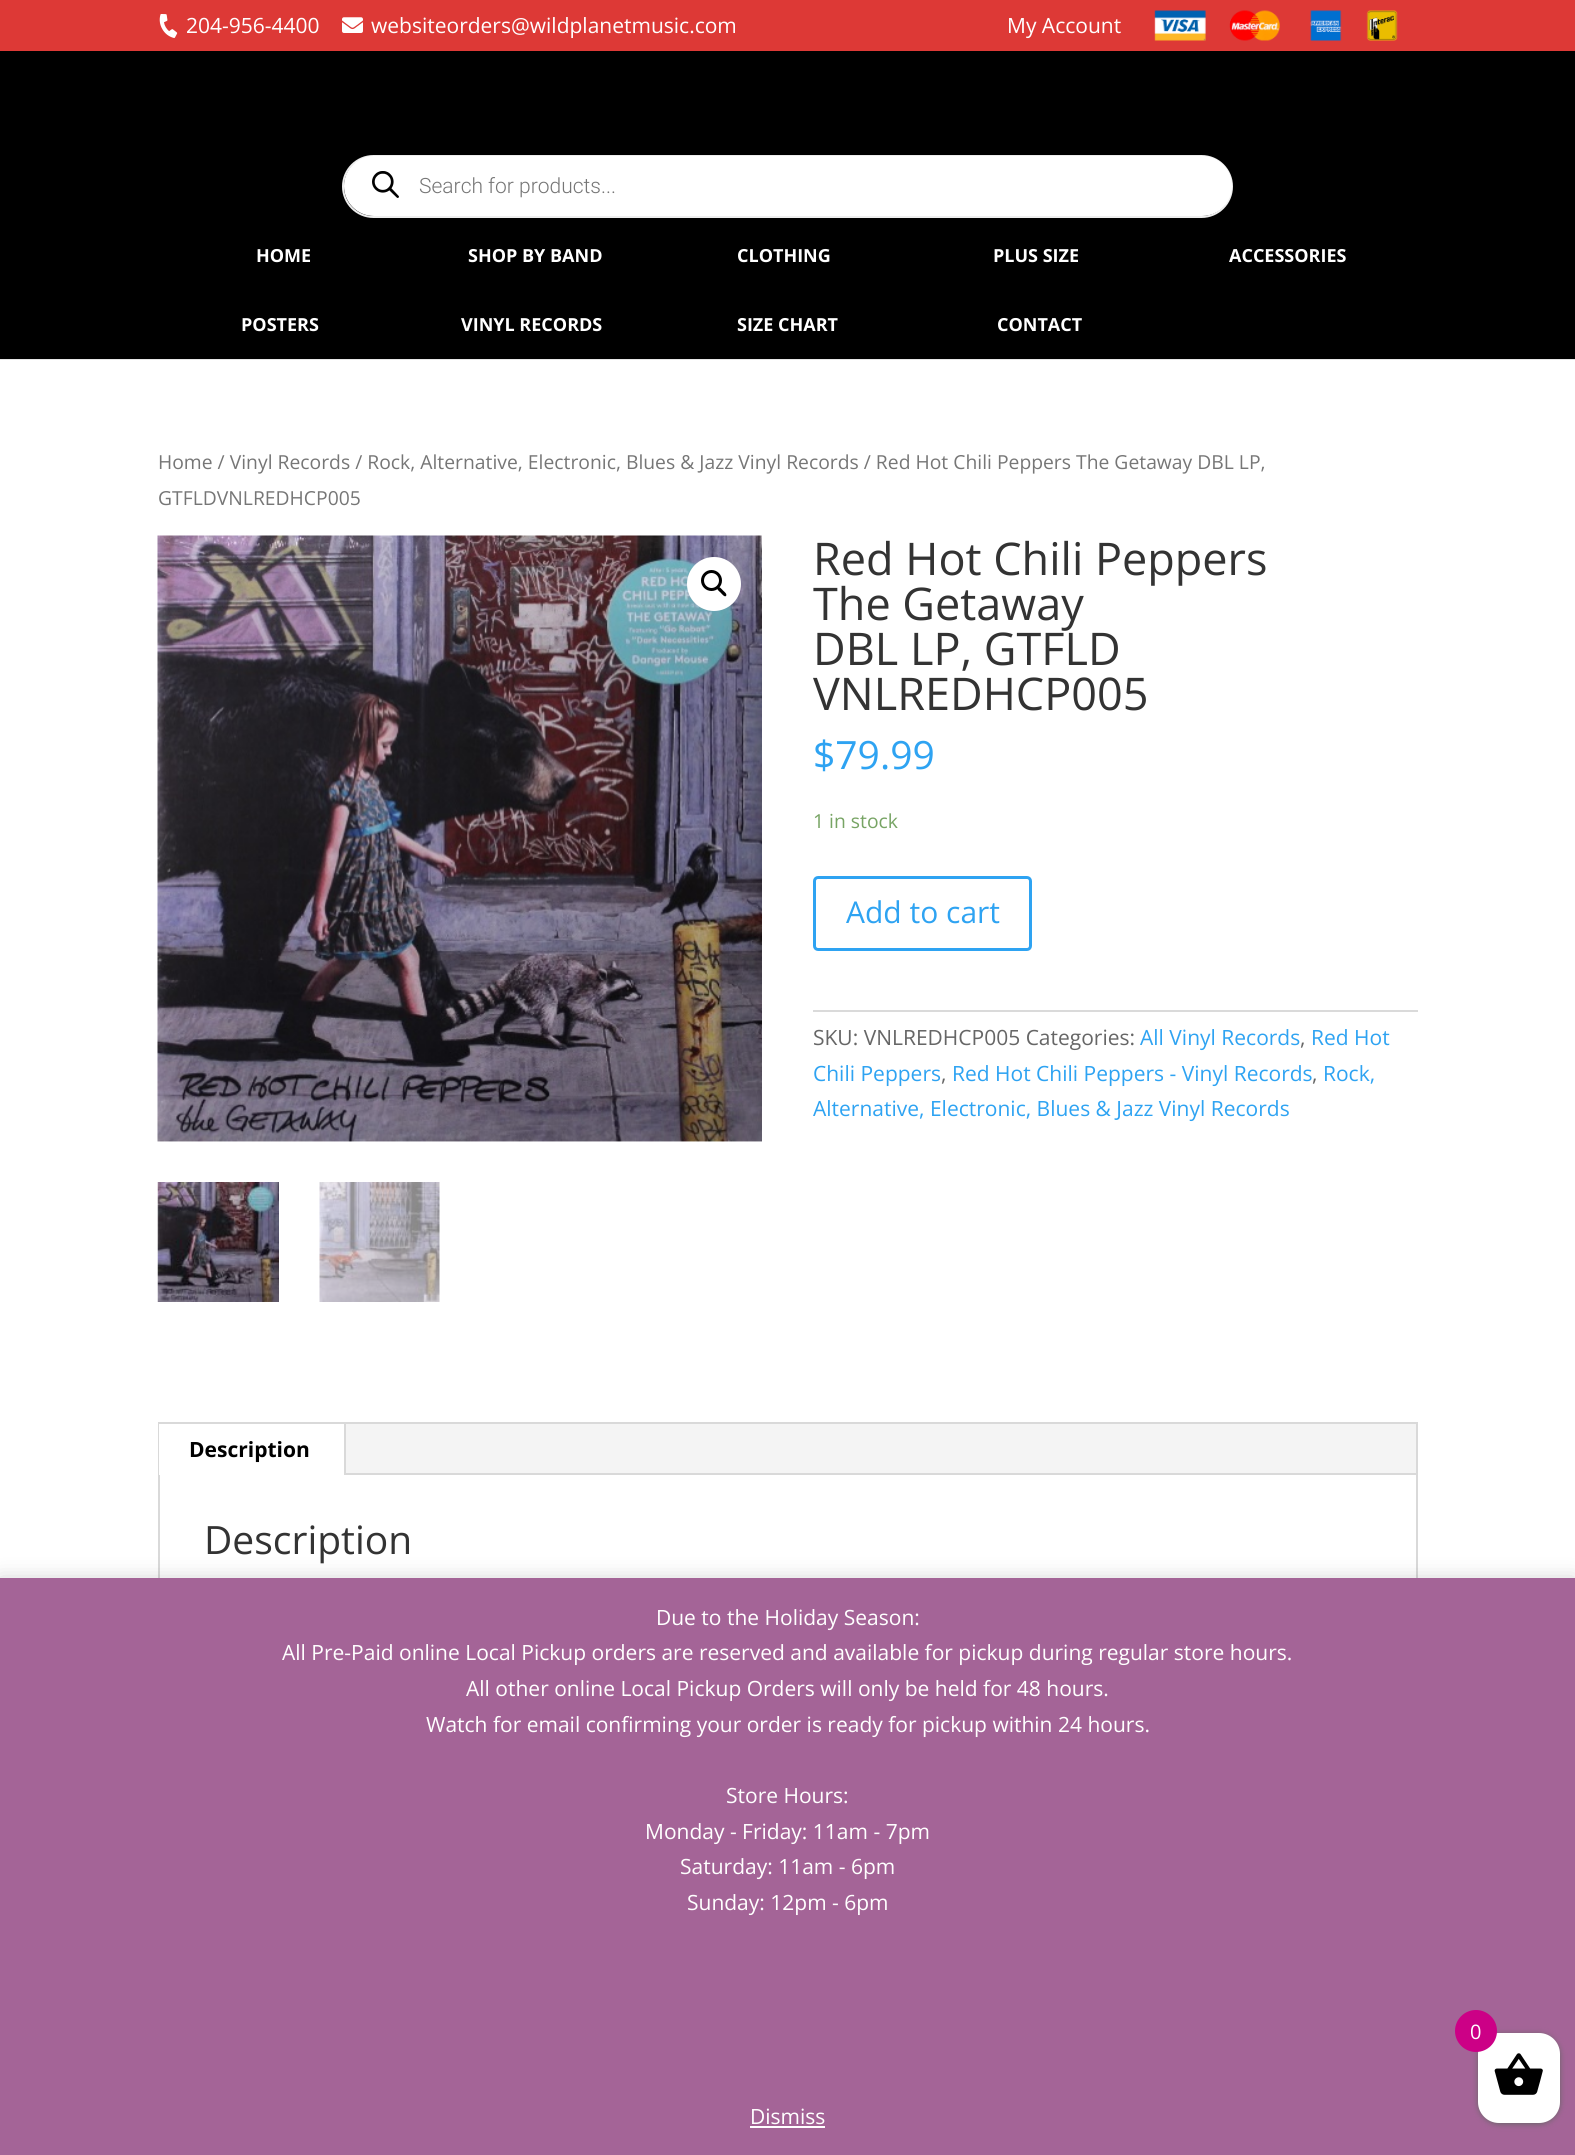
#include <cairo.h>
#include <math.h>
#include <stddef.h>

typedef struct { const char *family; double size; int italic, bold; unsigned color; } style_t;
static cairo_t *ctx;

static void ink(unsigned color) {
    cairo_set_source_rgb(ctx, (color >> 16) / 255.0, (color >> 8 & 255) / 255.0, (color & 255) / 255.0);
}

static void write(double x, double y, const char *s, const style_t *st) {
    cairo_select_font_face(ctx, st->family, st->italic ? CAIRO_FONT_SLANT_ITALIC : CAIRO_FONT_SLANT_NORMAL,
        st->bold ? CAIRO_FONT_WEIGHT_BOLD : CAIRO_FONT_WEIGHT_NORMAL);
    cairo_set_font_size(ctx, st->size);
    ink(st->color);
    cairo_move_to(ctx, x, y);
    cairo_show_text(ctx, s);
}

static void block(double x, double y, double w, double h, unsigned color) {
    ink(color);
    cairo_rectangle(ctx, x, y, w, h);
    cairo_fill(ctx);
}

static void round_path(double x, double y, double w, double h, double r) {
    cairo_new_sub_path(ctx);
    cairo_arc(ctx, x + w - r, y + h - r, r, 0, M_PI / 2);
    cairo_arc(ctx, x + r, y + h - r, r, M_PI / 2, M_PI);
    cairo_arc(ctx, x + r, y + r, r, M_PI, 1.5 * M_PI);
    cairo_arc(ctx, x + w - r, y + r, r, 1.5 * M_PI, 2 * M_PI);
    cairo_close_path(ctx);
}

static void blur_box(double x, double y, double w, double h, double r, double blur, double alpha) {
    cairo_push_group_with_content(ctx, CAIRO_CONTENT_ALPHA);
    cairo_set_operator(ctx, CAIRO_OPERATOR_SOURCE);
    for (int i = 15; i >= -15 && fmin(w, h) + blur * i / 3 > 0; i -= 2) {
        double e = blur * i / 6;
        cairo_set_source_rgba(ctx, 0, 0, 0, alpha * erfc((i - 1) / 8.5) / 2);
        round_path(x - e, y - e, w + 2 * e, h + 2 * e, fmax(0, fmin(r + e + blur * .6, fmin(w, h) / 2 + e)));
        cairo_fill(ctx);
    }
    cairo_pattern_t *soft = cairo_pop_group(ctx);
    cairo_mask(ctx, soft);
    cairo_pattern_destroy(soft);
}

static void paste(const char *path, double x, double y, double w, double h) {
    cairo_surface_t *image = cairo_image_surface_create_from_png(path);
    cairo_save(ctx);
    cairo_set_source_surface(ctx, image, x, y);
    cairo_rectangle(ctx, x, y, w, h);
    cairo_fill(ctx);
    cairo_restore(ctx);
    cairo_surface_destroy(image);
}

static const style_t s1 = {"Open Sans", 21, 0, 0, 0xffffff};
static const style_t s2 = {"Roboto Light", 21, 0, 0, 0x767676};
static const style_t s3 = {"Open Sans", 18, 0, 1, 0xffffff};
static const style_t s4 = {"Open Sans", 19.32, 0, 0, 0x767676};
static const style_t s5 = {"Open Sans", 45, 0, 0, 0x333333};
static const style_t s6 = {"Open Sans", 39, 0, 0, 0x2ea3f2};
static const style_t s7 = {"Open Sans", 19.32, 0, 0, 0x77a464};
static const style_t s8 = {"Open Sans", 30, 0, 0, 0x2ea3f2};
static const style_t s9 = {"Open Sans", 21, 0, 0, 0x666666};
static const style_t s10 = {"Open Sans", 21, 0, 0, 0x2ea3f2};
static const style_t s11 = {"Open Sans", 21, 0, 1, 0x000000};
static const style_t s12 = {"Open Sans", 39, 0, 0, 0x333333};
static const style_t s13 = {"Open Sans", 20, 0, 0, 0xffffff};

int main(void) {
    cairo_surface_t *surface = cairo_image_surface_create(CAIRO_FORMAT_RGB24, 1575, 2155);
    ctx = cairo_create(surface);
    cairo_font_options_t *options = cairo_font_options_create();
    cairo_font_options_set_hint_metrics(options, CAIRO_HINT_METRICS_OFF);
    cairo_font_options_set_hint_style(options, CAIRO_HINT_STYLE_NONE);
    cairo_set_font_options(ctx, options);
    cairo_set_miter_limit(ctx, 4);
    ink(0xffffff);
    cairo_paint(ctx);
    block(0, 0, 1575, 51, 0xdd3936);
    paste("pic1.png", 159, 14, 19, 24);
    write(186, 33, "204-956-4400", &s1);
    paste("pic2.png", 342, 17, 21, 16);
    write(371, 33, "websiteorders@wildplanetmusic.com", &s1);
    write(1007, 33, "My Account", &s1);
    paste("pic3.png", 1154, 10, 244, 31);
    block(0, 359, 1575, 1, 0xe6e6e6);
    block(0, 51, 1575, 308, 0x000000);
    round_path(343, 156, 889, 61, 30.5);
    ink(0xeeeeee);
    cairo_stroke(ctx);
    ink(0xffffff);
    round_path(344, 156, 888, 60, 30);
    cairo_fill(ctx);
    paste("pic4.png", 372, 171, 27, 27);
    write(419, 193, "Search for products...", &s2);
    write(256, 262, "HOME", &s3);
    write(468, 262, "SHOP BY BAND", &s3);
    write(737, 262, "CLOTHING", &s3);
    write(993, 262, "PLUS SIZE", &s3);
    write(1229, 262, "ACCESSORIES", &s3);
    write(241, 331, "POSTERS", &s3);
    write(461, 331, "VINYL RECORDS", &s3);
    write(737, 331, "SIZE CHART", &s3);
    write(997, 331, "CONTACT", &s3);
    write(158, 469, "Home / Vinyl Records / Rock, Alternative, Electronic, Blues & Jazz Vinyl Records / Red Hot Chili Peppers The Getaway DBL LP,", &s4);
    write(158, 505, "GTFLDVNLREDHCP005", &s4);
    paste("pic5.png", 157, 535, 605, 607);
    ink(0xffffff);
    cairo_arc(ctx, 714, 584, 27, 0, 2 * M_PI);
    cairo_fill(ctx);
    cairo_arc(ctx, 711.5, 580.5, 9, 0, 2 * M_PI);
    ink(0x000000);
    cairo_set_line_width(ctx, 3);
    cairo_stroke(ctx);
    cairo_new_path(ctx);
    cairo_move_to(ctx, 717.5, 587.5);
    cairo_curve_to(ctx, 719, 585.5, 722, 589.5, 723, 590.5);
    cairo_curve_to(ctx, 724, 591.5, 727.5, 594, 726, 596);
    cairo_curve_to(ctx, 724.5, 597.5, 721.5, 593.5, 720.5, 592.5);
    cairo_curve_to(ctx, 720, 592, 716, 589, 717.5, 587.5);
    cairo_close_path(ctx);
    cairo_fill(ctx);
    paste("pic6.png", 157, 1182, 122, 120);
    paste("pic7.png", 319, 1182, 121, 120);
    write(813, 575, "Red Hot Chili Peppers", &s5);
    write(813, 620, "The Getaway", &s5);
    write(813, 665, "DBL LP, GTFLD", &s5);
    write(813, 710, "VNLREDHCP005", &s5);
    write(813, 769, "$79.99", &s6);
    write(813, 828, "1 in stock", &s7);
    round_path(814.5, 877.5, 216, 72, 3.5);
    ink(0x2ea3f2);
    cairo_stroke(ctx);
    write(846, 923, "Add to cart", &s8);
    block(813, 1010, 605, 2, 0xdadada);
    write(813, 1045, "SKU: VNLREDHCP005 Categories:", &s9);
    write(1140, 1045, "All Vinyl Records", &s10);
    write(1300, 1045, ",", &s9);
    write(1311, 1045, "Red Hot", &s10);
    write(813, 1081, "Chili Peppers", &s10);
    write(941, 1081, ",", &s9);
    write(952, 1081, "Red Hot Chili Peppers - Vinyl Records", &s10);
    write(1312, 1081, ",", &s9);
    write(1323, 1081, "Rock,", &s10);
    write(813, 1116, "Alternative, Electronic, Blues & Jazz Vinyl Records", &s10);
    cairo_rectangle(ctx, 159, 1423, 1258, 289);
    ink(0xd9d9d9);
    cairo_set_line_width(ctx, 2);
    cairo_stroke(ctx);
    block(346, 1424, 1070, 49, 0xf4f4f4);
    block(159, 1424, 1, 51, 0xffffff);
    block(344, 1424, 2, 51, 0xd9d9d9);
    write(189, 1457, "Description", &s11);
    block(346, 1473, 1070, 2, 0xd9d9d9);
    write(204, 1554, "Description", &s12);
    ink(0x000000);
    blur_box(0, 1580, 1575, 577, 0, 10.5, 0.2);
    block(0, 1578, 1575, 577, 0xa46497);
    write(656, 1625, "Due to the Holiday Season:", &s1);
    write(282, 1660, "All Pre-Paid online Local Pickup orders are reserved and available for pickup during regular store hours.", &s1);
    write(466, 1696, "All other online Local Pickup Orders will only be held for 48 hours.", &s1);
    write(426, 1732, "Watch for email confirming your order is ready for pickup within 24 hours.", &s1);
    write(726, 1803, "Store Hours:", &s1);
    write(645, 1839, "Monday - Friday: 11am - 7pm", &s1);
    write(680, 1874, "Saturday: 11am - 6pm", &s1);
    write(687, 1910, "Sunday: 12pm - 6pm", &s1);
    write(750, 2124, "Dismiss", &s1);
    block(750, 2126, 75, 2, 0xffffff);
    ink(0x666666);
    blur_box(1478, 2034, 82, 90, 21, 3, 1);
    ink(0xffffff);
    round_path(1478, 2033, 82, 90, 21);
    cairo_fill(ctx);
    ink(0xcc0086);
    cairo_arc(ctx, 1476, 2031, 21, 0, 2 * M_PI);
    cairo_fill(ctx);
    write(1470, 2039, "0", &s13);
    paste("pic8.png", 1494, 2053, 49, 42);
    cairo_surface_write_to_png(surface, "screenshot.png");
    cairo_font_options_destroy(options);
    cairo_destroy(ctx);
    cairo_surface_destroy(surface);
    return 0;
}
